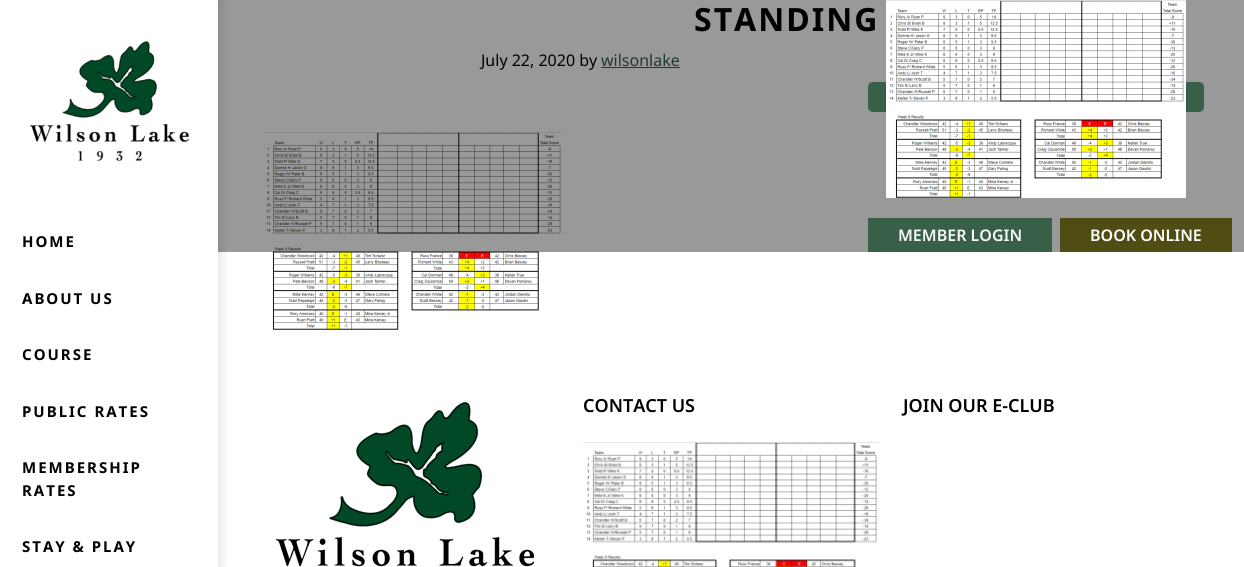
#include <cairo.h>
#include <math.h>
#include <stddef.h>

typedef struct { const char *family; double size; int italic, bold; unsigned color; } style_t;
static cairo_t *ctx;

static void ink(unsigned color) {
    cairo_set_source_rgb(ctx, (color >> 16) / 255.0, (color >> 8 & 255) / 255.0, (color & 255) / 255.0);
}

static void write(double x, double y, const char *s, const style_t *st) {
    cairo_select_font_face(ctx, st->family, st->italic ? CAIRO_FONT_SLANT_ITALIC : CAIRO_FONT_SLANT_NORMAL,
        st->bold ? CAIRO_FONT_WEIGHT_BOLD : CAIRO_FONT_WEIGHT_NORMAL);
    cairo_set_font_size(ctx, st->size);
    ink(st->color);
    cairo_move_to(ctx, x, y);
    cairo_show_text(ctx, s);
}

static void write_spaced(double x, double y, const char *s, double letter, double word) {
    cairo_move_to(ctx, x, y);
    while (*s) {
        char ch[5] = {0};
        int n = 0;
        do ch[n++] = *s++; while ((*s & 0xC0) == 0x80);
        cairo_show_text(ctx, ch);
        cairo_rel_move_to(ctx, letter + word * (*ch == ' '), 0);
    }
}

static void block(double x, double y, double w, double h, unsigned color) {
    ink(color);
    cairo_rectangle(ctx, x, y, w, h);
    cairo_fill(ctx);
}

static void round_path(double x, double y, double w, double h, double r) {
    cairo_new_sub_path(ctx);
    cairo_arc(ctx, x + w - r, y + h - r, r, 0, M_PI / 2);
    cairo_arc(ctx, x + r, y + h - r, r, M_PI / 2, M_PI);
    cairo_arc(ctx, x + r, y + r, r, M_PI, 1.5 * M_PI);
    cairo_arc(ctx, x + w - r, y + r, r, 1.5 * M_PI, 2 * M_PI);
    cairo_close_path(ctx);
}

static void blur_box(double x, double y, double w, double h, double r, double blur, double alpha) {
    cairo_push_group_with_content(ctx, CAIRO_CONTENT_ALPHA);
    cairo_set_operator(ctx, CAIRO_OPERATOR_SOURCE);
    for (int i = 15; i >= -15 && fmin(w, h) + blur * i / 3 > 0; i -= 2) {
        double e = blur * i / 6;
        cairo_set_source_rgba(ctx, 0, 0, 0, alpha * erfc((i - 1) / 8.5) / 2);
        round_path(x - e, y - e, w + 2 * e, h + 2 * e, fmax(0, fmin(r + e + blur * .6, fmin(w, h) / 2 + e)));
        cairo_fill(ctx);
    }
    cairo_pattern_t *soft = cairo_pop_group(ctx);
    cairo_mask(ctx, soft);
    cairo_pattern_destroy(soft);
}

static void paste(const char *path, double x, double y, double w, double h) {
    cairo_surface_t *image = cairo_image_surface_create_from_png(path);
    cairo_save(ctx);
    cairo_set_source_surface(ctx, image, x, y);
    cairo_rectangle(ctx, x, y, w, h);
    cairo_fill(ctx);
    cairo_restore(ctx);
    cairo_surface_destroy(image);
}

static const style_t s1 = {"Noto Sans", 16, 0, 0, 0x000000};
static const style_t s2 = {"Noto Sans", 16, 0, 0, 0x385f48};
static const style_t s3 = {"Noto Sans SemiBold", 16, 0, 0, 0xf8f9fa};
static const style_t s4 = {"Noto Sans SemiBold", 16, 0, 0, 0xffffff};
static const style_t s5 = {"Noto Sans SemiBold", 18, 0, 0, 0x000000};

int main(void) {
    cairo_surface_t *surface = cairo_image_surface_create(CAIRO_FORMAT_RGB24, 1244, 567);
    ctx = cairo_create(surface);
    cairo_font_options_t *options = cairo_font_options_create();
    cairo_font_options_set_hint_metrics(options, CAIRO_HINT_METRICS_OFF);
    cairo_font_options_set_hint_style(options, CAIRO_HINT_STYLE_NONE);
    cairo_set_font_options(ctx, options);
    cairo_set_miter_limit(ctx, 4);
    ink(0xffffff);
    cairo_paint(ctx);
    cairo_select_font_face(ctx, "Noto Sans", CAIRO_FONT_SLANT_NORMAL, CAIRO_FONT_WEIGHT_BOLD);
    cairo_set_font_size(ctx, 32);
    ink(0x000000);
    write_spaced(694, 31, "STANDING", 2, 0);
    write(481, 66, "July 22, 2020 by", &s1);
    write(601, 66, "wilsonlake", &s2);
    block(601, 67, 79, 1, 0x385f48);
    paste("pic1.png", 263, 132, 300, 198);
    cairo_set_source_rgba(ctx, 0, 0, 0, 0.4);
    cairo_rectangle(ctx, 218, 0, 1026, 252);
    cairo_fill(ctx);
    cairo_save(ctx);
    cairo_rectangle(ctx, 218, 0, 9, 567);
    cairo_clip(ctx);
    ink(0x000000);
    blur_box(0, 0, 218, 567, 0, 8, 0.16);
    cairo_restore(ctx);
    paste("pic2.png", 30, 41, 159, 120);
    cairo_select_font_face(ctx, "Noto Sans", CAIRO_FONT_SLANT_NORMAL, CAIRO_FONT_WEIGHT_BOLD);
    cairo_set_font_size(ctx, 15);
    ink(0x000000);
    write_spaced(22, 247, "HOME", 2, 0);
    write_spaced(22, 304, "ABOUT US", 2, 0);
    write_spaced(22, 360, "COURSE", 2, 0);
    write_spaced(22, 417, "PUBLIC RATES", 2, 0);
    write_spaced(22, 473, "MEMBERSHIP", 2, 0);
    write_spaced(22, 496, "RATES", 2, 0);
    write_spaced(22, 552, "STAY & PLAY", 2, 0);
    ink(0x385f48);
    round_path(868, 82, 336, 30, 5);
    cairo_fill(ctx);
    paste("pic1.png", 886, 0, 300, 198);
    block(868, 218, 184, 34, 0x385f48);
    write(898, 241, "MEMBER LOGIN", &s3);
    block(1060, 218, 172, 34, 0x504d14);
    write(1090, 241, "BOOK ONLINE", &s4);
    paste("pic3.png", 276, 402, 258, 165);
    write(583, 412, "CONTACT US", &s5);
    paste("pic4.png", 583, 442, 296, 125);
    write(903, 412, "JOIN OUR E-CLUB", &s5);
    cairo_surface_write_to_png(surface, "screenshot.png");
    cairo_font_options_destroy(options);
    cairo_destroy(ctx);
    cairo_surface_destroy(surface);
    return 0;
}
